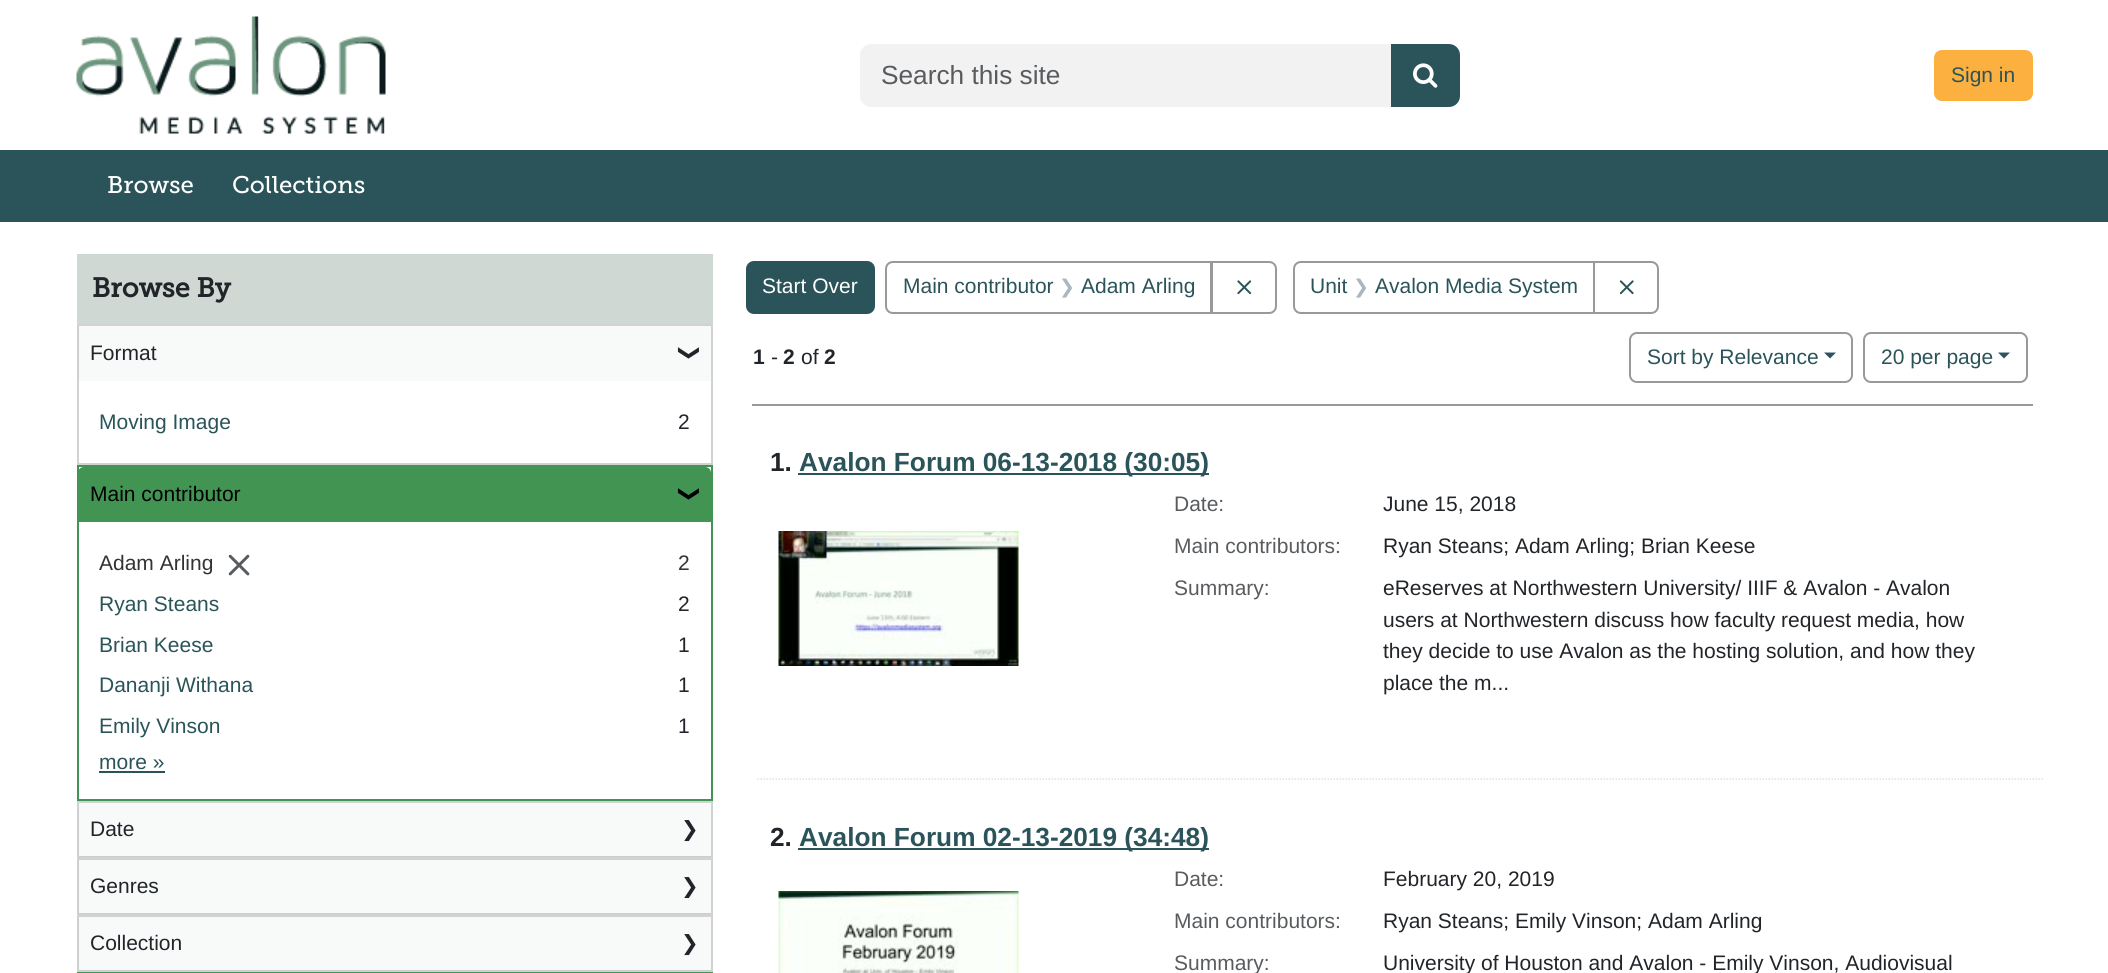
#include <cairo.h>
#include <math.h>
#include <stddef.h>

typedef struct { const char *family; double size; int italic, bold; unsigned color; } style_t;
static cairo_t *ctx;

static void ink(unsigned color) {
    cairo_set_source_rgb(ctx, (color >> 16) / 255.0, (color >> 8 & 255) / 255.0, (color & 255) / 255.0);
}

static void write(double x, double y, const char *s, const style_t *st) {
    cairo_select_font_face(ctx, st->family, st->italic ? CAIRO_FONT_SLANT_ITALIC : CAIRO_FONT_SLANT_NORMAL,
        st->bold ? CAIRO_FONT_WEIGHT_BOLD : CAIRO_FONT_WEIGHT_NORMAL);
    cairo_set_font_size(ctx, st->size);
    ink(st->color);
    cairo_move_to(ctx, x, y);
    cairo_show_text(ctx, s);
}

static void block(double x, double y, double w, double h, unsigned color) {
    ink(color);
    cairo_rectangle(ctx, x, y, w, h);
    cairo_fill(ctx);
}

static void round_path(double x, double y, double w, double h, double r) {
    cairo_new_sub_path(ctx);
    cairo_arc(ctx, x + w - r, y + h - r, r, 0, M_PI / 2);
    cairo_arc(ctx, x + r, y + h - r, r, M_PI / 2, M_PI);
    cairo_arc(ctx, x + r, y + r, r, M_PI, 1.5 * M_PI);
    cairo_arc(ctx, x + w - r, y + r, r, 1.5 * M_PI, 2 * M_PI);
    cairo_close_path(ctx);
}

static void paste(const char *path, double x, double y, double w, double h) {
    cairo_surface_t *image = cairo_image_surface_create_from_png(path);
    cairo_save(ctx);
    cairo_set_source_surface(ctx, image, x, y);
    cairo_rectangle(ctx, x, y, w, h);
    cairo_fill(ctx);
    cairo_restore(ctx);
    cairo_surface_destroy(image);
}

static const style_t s1 = {"Liberation Sans", 26.25, 0, 0, 0x595c5f};
static const style_t s2 = {"Liberation Sans", 21, 0, 0, 0x2a5459};
static const style_t s3 = {"Museo Slab", 24, 0, 0, 0xffffff};
static const style_t s4 = {"Museo Slab", 27, 0, 1, 0x212529};
static const style_t s5 = {"Liberation Sans", 21, 0, 0, 0x212529};
static const style_t s6 = {"DejaVu Sans", 21, 0, 0, 0x212529};
static const style_t s7 = {"Liberation Sans", 21, 0, 0, 0x000000};
static const style_t s8 = {"DejaVu Sans", 21, 0, 0, 0x000000};
static const style_t s9 = {"Liberation Sans", 21, 0, 0, 0x333333};
static const style_t s10 = {"Liberation Sans", 21, 0, 0, 0xffffff};
static const style_t s11 = {"DejaVu Sans", 19, 0, 0, 0xadb5bd};
static const style_t s12 = {"Liberation Sans", 21, 0, 1, 0x212529};
static const style_t s13 = {"Liberation Sans", 26.25, 0, 1, 0x212529};
static const style_t s14 = {"Liberation Sans", 26.25, 0, 1, 0x2a5459};
static const style_t s15 = {"Liberation Sans", 21, 0, 0, 0x595c5f};

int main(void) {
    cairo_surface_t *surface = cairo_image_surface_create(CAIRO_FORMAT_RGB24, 2108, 973);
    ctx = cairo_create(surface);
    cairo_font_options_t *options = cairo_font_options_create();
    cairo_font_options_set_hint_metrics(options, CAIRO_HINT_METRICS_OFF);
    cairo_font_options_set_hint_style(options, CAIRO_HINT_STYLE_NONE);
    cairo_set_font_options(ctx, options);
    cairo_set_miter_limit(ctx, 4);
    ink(0xffffff);
    cairo_paint(ctx);
    paste("pic1.png", 76, 16, 310, 118);
    ink(0xf2f2f2);
    cairo_new_path(ctx);
    cairo_move_to(ctx, 871, 44);
    cairo_line_to(ctx, 1392, 44);
    cairo_line_to(ctx, 1392, 107);
    cairo_line_to(ctx, 871, 107);
    cairo_curve_to(ctx, 865, 107, 860, 102, 860, 96);
    cairo_line_to(ctx, 860, 55);
    cairo_curve_to(ctx, 860, 49, 865, 44, 871, 44);
    cairo_close_path(ctx);
    cairo_fill(ctx);
    write(881, 84, "Search this site", &s1);
    ink(0x2a5459);
    cairo_new_path(ctx);
    cairo_move_to(ctx, 1392, 45);
    cairo_line_to(ctx, 1449, 45);
    cairo_curve_to(ctx, 1454.5, 45, 1459, 49.5, 1459, 55);
    cairo_line_to(ctx, 1459, 96);
    cairo_curve_to(ctx, 1459, 101.5, 1454.5, 106, 1449, 106);
    cairo_line_to(ctx, 1392, 106);
    cairo_close_path(ctx);
    cairo_fill_preserve(ctx);
    cairo_stroke(ctx);
    paste("pic2.png", 1413, 63, 25, 25);
    ink(0xfbb040);
    round_path(1935, 51, 97, 49, 7);
    cairo_fill_preserve(ctx);
    cairo_stroke(ctx);
    write(1951, 82, "Sign in", &s2);
    block(0, 150, 2108, 72, 0x2a5459);
    write(107, 193, "Browse", &s3);
    write(232, 193, "Collections", &s3);
    block(77, 254, 636, 70, 0xcfd8d3);
    write(92, 297, "Browse By", &s4);
    cairo_rectangle(ctx, 78, 325, 634, 139);
    ink(0xd2d2d2);
    cairo_stroke(ctx);
    cairo_set_source_rgba(ctx, 0.129, 0.145, 0.161, 0.03);
    cairo_rectangle(ctx, 78, 326, 633, 55);
    cairo_fill(ctx);
    write(90, 360, "Format", &s5);
    cairo_save(ctx);
    cairo_translate(ctx, 683, 344);
    cairo_rotate(ctx, 90 * M_PI / 180);
    write(0, 0, "❯", &s6);
    cairo_restore(ctx);
    write(99, 429, "Moving Image", &s2);
    write(678, 429, "2", &s5);
    cairo_rectangle(ctx, 78, 466, 634, 334);
    ink(0x429453);
    cairo_stroke(ctx);
    cairo_new_path(ctx);
    cairo_move_to(ctx, 84, 467);
    cairo_line_to(ctx, 705, 467);
    cairo_curve_to(ctx, 708.5, 467, 711, 469.5, 711, 473);
    cairo_line_to(ctx, 711, 522);
    cairo_line_to(ctx, 78, 522);
    cairo_line_to(ctx, 78, 473);
    cairo_curve_to(ctx, 78, 469.5, 80.5, 467, 84, 467);
    cairo_close_path(ctx);
    cairo_fill(ctx);
    write(90, 501, "Main contributor", &s7);
    cairo_save(ctx);
    cairo_translate(ctx, 683, 485);
    cairo_rotate(ctx, 90 * M_PI / 180);
    write(0, 0, "❯", &s8);
    cairo_restore(ctx);
    write(99, 570, "Adam Arling", &s9);
    paste("pic3.png", 228, 554, 22, 22);
    write(678, 570, "2", &s9);
    write(99, 611, "Ryan Steans", &s2);
    write(678, 611, "2", &s5);
    write(99, 652, "Brian Keese", &s2);
    write(678, 652, "1", &s5);
    write(99, 692, "Dananji Withana", &s2);
    write(678, 692, "1", &s5);
    write(99, 733, "Emily Vinson", &s2);
    write(678, 733, "1", &s5);
    write(99, 769, "more »", &s2);
    block(99, 771, 66, 2, 0x2a5459);
    cairo_rectangle(ctx, 78, 802, 634, 55);
    ink(0xd2d2d2);
    cairo_stroke(ctx);
    cairo_set_source_rgba(ctx, 0.129, 0.145, 0.161, 0.03);
    cairo_rectangle(ctx, 78, 803, 633, 54);
    cairo_fill(ctx);
    write(90, 836, "Date", &s5);
    write(681, 836, "❯", &s6);
    cairo_rectangle(ctx, 78, 859, 634, 55);
    ink(0xd2d2d2);
    cairo_stroke(ctx);
    cairo_set_source_rgba(ctx, 0.129, 0.145, 0.161, 0.03);
    cairo_rectangle(ctx, 78, 860, 633, 54);
    cairo_fill(ctx);
    write(90, 893, "Genres", &s5);
    write(681, 893, "❯", &s6);
    cairo_rectangle(ctx, 78, 916, 634, 55);
    ink(0xd2d2d2);
    cairo_stroke(ctx);
    cairo_set_source_rgba(ctx, 0.129, 0.145, 0.161, 0.03);
    cairo_rectangle(ctx, 78, 917, 633, 54);
    cairo_fill(ctx);
    write(90, 950, "Collection", &s5);
    write(681, 950, "❯", &s6);
    cairo_rectangle(ctx, 78, 973, 634, 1);
    ink(0x429453);
    cairo_stroke(ctx);
    ink(0x2a5459);
    round_path(747, 262, 127, 51, 7);
    cairo_fill_preserve(ctx);
    cairo_stroke(ctx);
    write(762, 293, "Start Over", &s10);
    cairo_new_path(ctx);
    cairo_move_to(ctx, 893, 262);
    cairo_line_to(ctx, 1211, 262);
    cairo_line_to(ctx, 1211, 313);
    cairo_line_to(ctx, 893, 313);
    cairo_curve_to(ctx, 889, 313, 886, 310, 886, 306);
    cairo_line_to(ctx, 886, 269);
    cairo_curve_to(ctx, 886, 265, 889, 262, 893, 262);
    cairo_close_path(ctx);
    ink(0x999999);
    cairo_stroke(ctx);
    write(903, 293, "Main contributor", &s2);
    write(1059, 293, "❯", &s11);
    write(1081, 293, "Adam Arling", &s2);
    ink(0xffffff);
    cairo_new_path(ctx);
    cairo_move_to(ctx, 1212, 262);
    cairo_line_to(ctx, 1269, 262);
    cairo_curve_to(ctx, 1273, 262, 1276, 265, 1276, 269);
    cairo_line_to(ctx, 1276, 306);
    cairo_curve_to(ctx, 1276, 310, 1273, 313, 1269, 313);
    cairo_line_to(ctx, 1212, 313);
    cairo_close_path(ctx);
    cairo_fill_preserve(ctx);
    ink(0x999999);
    cairo_stroke(ctx);
    paste("pic4.png", 1237, 280, 15, 15);
    cairo_new_path(ctx);
    cairo_move_to(ctx, 1301, 262);
    cairo_line_to(ctx, 1594, 262);
    cairo_line_to(ctx, 1594, 313);
    cairo_line_to(ctx, 1301, 313);
    cairo_curve_to(ctx, 1297, 313, 1294, 310, 1294, 306);
    cairo_line_to(ctx, 1294, 269);
    cairo_curve_to(ctx, 1294, 265, 1297, 262, 1301, 262);
    cairo_close_path(ctx);
    cairo_stroke(ctx);
    write(1310, 293, "Unit", &s2);
    write(1353, 293, "❯", &s11);
    write(1375, 293, "Avalon Media System", &s2);
    ink(0xffffff);
    cairo_new_path(ctx);
    cairo_move_to(ctx, 1594, 262);
    cairo_line_to(ctx, 1651, 262);
    cairo_curve_to(ctx, 1655, 262, 1658, 265, 1658, 269);
    cairo_line_to(ctx, 1658, 306);
    cairo_curve_to(ctx, 1658, 310, 1655, 313, 1651, 313);
    cairo_line_to(ctx, 1594, 313);
    cairo_close_path(ctx);
    cairo_fill_preserve(ctx);
    ink(0x999999);
    cairo_stroke(ctx);
    paste("pic5.png", 1619, 280, 15, 15);
    block(752, 404, 1281, 2, 0x999999);
    write(753, 364, "1", &s12);
    write(771, 364, "-", &s5);
    write(783, 364, "2", &s12);
    write(801, 364, "of", &s5);
    write(824, 364, "2", &s12);
    round_path(1630, 333, 222, 49, 7);
    ink(0x999999);
    cairo_stroke(ctx);
    write(1647, 364, "Sort by Relevance", &s2);
    cairo_new_path(ctx);
    cairo_move_to(ctx, 1824, 352.5);
    cairo_line_to(ctx, 1836, 352.5);
    cairo_line_to(ctx, 1830, 358.5);
    cairo_close_path(ctx);
    cairo_fill(ctx);
    round_path(1864, 333, 163, 49, 7);
    ink(0x999999);
    cairo_stroke(ctx);
    write(1881, 364, "20 per page", &s2);
    cairo_new_path(ctx);
    cairo_move_to(ctx, 1998, 352.5);
    cairo_line_to(ctx, 2010, 352.5);
    cairo_line_to(ctx, 2004, 358.5);
    cairo_close_path(ctx);
    cairo_fill(ctx);
    cairo_new_path(ctx);
    cairo_move_to(ctx, 757.5, 779);
    cairo_line_to(ctx, 2044.5, 779);
    ink(0xdee2e6);
    cairo_set_line_width(ctx, 1.5);
    cairo_set_dash(ctx, (double[]){1.5, 1.5}, 2, 0);
    cairo_stroke(ctx);
    write(770, 471, "1.", &s13);
    block(798, 473, 411, 2, 0x2a5459);
    write(799, 471, "Avalon Forum 06-13-2018 (30:05)", &s14);
    paste("pic6.png", 778, 531, 241, 135);
    write(1174, 511, "Date:", &s15);
    write(1383, 511, "June 15, 2018", &s5);
    write(1174, 553, "Main contributors:", &s15);
    write(1383, 553, "Ryan Steans; Adam Arling; Brian Keese", &s5);
    write(1174, 595, "Summary:", &s15);
    write(1383, 595, "eReserves at Northwestern University/ IIIF & Avalon - Avalon", &s5);
    write(1383, 627, "users at Northwestern discuss how faculty request media, how", &s5);
    write(1383, 658, "they decide to use Avalon as the hosting solution, and how they", &s5);
    write(1383, 690, "place the m...", &s5);
    write(770, 846, "2.", &s13);
    block(798, 848, 411, 2, 0x2a5459);
    write(799, 846, "Avalon Forum 02-13-2019 (34:48)", &s14);
    paste("pic7.png", 778, 891, 241, 82);
    write(1174, 886, "Date:", &s15);
    write(1383, 886, "February 20, 2019", &s5);
    write(1174, 928, "Main contributors:", &s15);
    write(1383, 928, "Ryan Steans; Emily Vinson; Adam Arling", &s5);
    write(1174, 970, "Summary:", &s15);
    write(1383, 970, "University of Houston and Avalon - Emily Vinson, Audiovisual", &s5);
    cairo_surface_write_to_png(surface, "screenshot.png");
    cairo_font_options_destroy(options);
    cairo_destroy(ctx);
    cairo_surface_destroy(surface);
    return 0;
}
